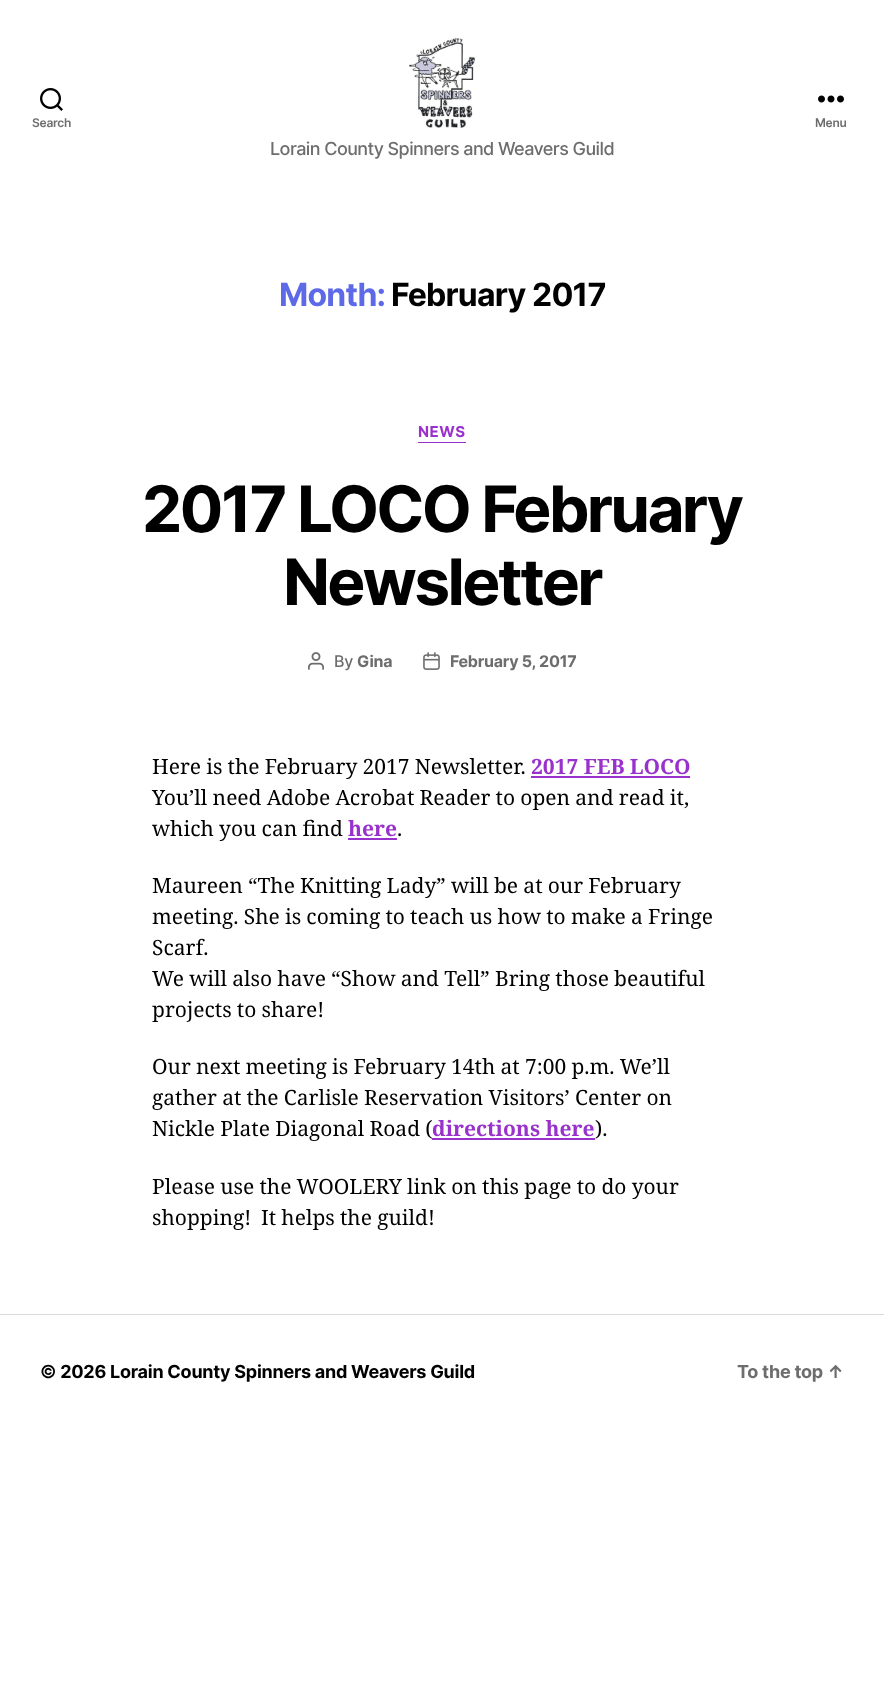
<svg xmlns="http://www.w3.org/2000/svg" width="884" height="1697">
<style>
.a{font:600 12px Inter;letter-spacing:-0.25px;fill:#6d6d6d}
.b{font:500 18px Inter;letter-spacing:-0.55px;fill:#6d6d6d}
.c{font:bold 32px Inter;letter-spacing:-0.8px;fill:#5e69e8}
.d{font:bold 32px Inter;letter-spacing:-0.8px;fill:#000}
.e{font:bold 15px Inter;letter-spacing:0.5px;fill:#9932cc}
.f{font:bold 64px Inter;letter-spacing:-2.7px;fill:#000}
.g{font:500 16px Inter;letter-spacing:-0.25px;fill:#6d6d6d}
.h{font:bold 16px Inter;letter-spacing:-0.25px;fill:#6d6d6d}
.i{font:21px Noto Serif;fill:#000}
.j{font:bold 21px Noto Serif;fill:#9932cc}
.k{font:bold 18px Inter;letter-spacing:-0.25px;fill:#000}
.l{font:bold 18px Inter;letter-spacing:-0.25px;fill:#6d6d6d}
</style>
<rect width="100%" height="100%" fill="#fff"/>
<image href="1.png" x="40" y="88" width="23" height="23"/>
<image href="2.png" x="818" y="95" width="26" height="8"/>
<image href="3.png" x="409" y="38" width="66" height="90"/>
<path fill="#9932cc" d="M418 442h48v1H418z"/>
<image href="4.png" x="308" y="652" width="16" height="18"/>
<image href="5.png" x="423" y="652" width="17" height="18"/>
<path fill="#9932cc" d="M531 776h159v2H531z"/>
<path fill="#9932cc" d="M348 838h49v2H348z"/>
<path fill="#9932cc" d="M432 1138h163v2H432z"/>
<path fill="#dbdbdb" d="M0 1314h884v1H0z"/>
<text class="a" x="32" y="127">Search</text>
<text class="a" x="815" y="127">Menu</text>
<text class="b" x="270" y="155">Lorain County Spinners and Weavers Guild</text>
<text class="c" x="279" y="306">Month:</text>
<text class="d" x="391" y="306">February 2017</text>
<text class="e" x="418" y="437">NEWS</text>
<text class="f" x="142" y="532">2017 LOCO February</text>
<text class="f" x="283" y="605">Newsletter</text>
<text class="g" x="334" y="667">By</text>
<text class="h" x="357" y="667">Gina</text>
<text class="h" x="450" y="667">February 5, 2017</text>
<text class="i" x="152" y="774" word-spacing="-0.25">Here is the February 2017 Newsletter.</text>
<text class="j" x="531" y="774" word-spacing="-0.25">2017 FEB LOCO</text>
<text class="i" x="152" y="805" word-spacing="-0.25">You’ll need Adobe Acrobat Reader to open and read it,</text>
<text class="i" x="152" y="836" word-spacing="-0.25">which you can find</text>
<text class="j" x="348" y="836">here</text>
<text class="i" x="397" y="836">.</text>
<text class="i" x="152" y="893" word-spacing="-0.25">Maureen “The Knitting Lady” will be at our February</text>
<text class="i" x="152" y="924" word-spacing="-0.25">meeting. She is coming to teach us how to make a Fringe</text>
<text class="i" x="152" y="955">Scarf.</text>
<text class="i" x="152" y="986" word-spacing="-0.25">We will also have “Show and Tell” Bring those beautiful</text>
<text class="i" x="152" y="1017" word-spacing="-0.25">projects to share!</text>
<text class="i" x="152" y="1074" word-spacing="-0.25">Our next meeting is February 14th at 7:00 p.m. We’ll</text>
<text class="i" x="152" y="1105" word-spacing="-0.25">gather at the Carlisle Reservation Visitors’ Center on</text>
<text class="i" x="152" y="1136" word-spacing="-0.25">Nickle Plate Diagonal Road (</text>
<text class="j" x="432" y="1136">directions here</text>
<text class="i" x="595" y="1136">).</text>
<text class="i" x="152" y="1194" word-spacing="-0.25">Please use the WOOLERY link on this page to do your</text>
<text class="i" x="152" y="1225">shopping!</text>
<text class="i" x="261" y="1225" word-spacing="-0.25">It helps the guild!</text>
<text class="k" x="40" y="1378">© 2026 Lorain County Spinners and Weavers Guild</text>
<text class="l" x="737" y="1378">To the top ↑</text>
</svg>
